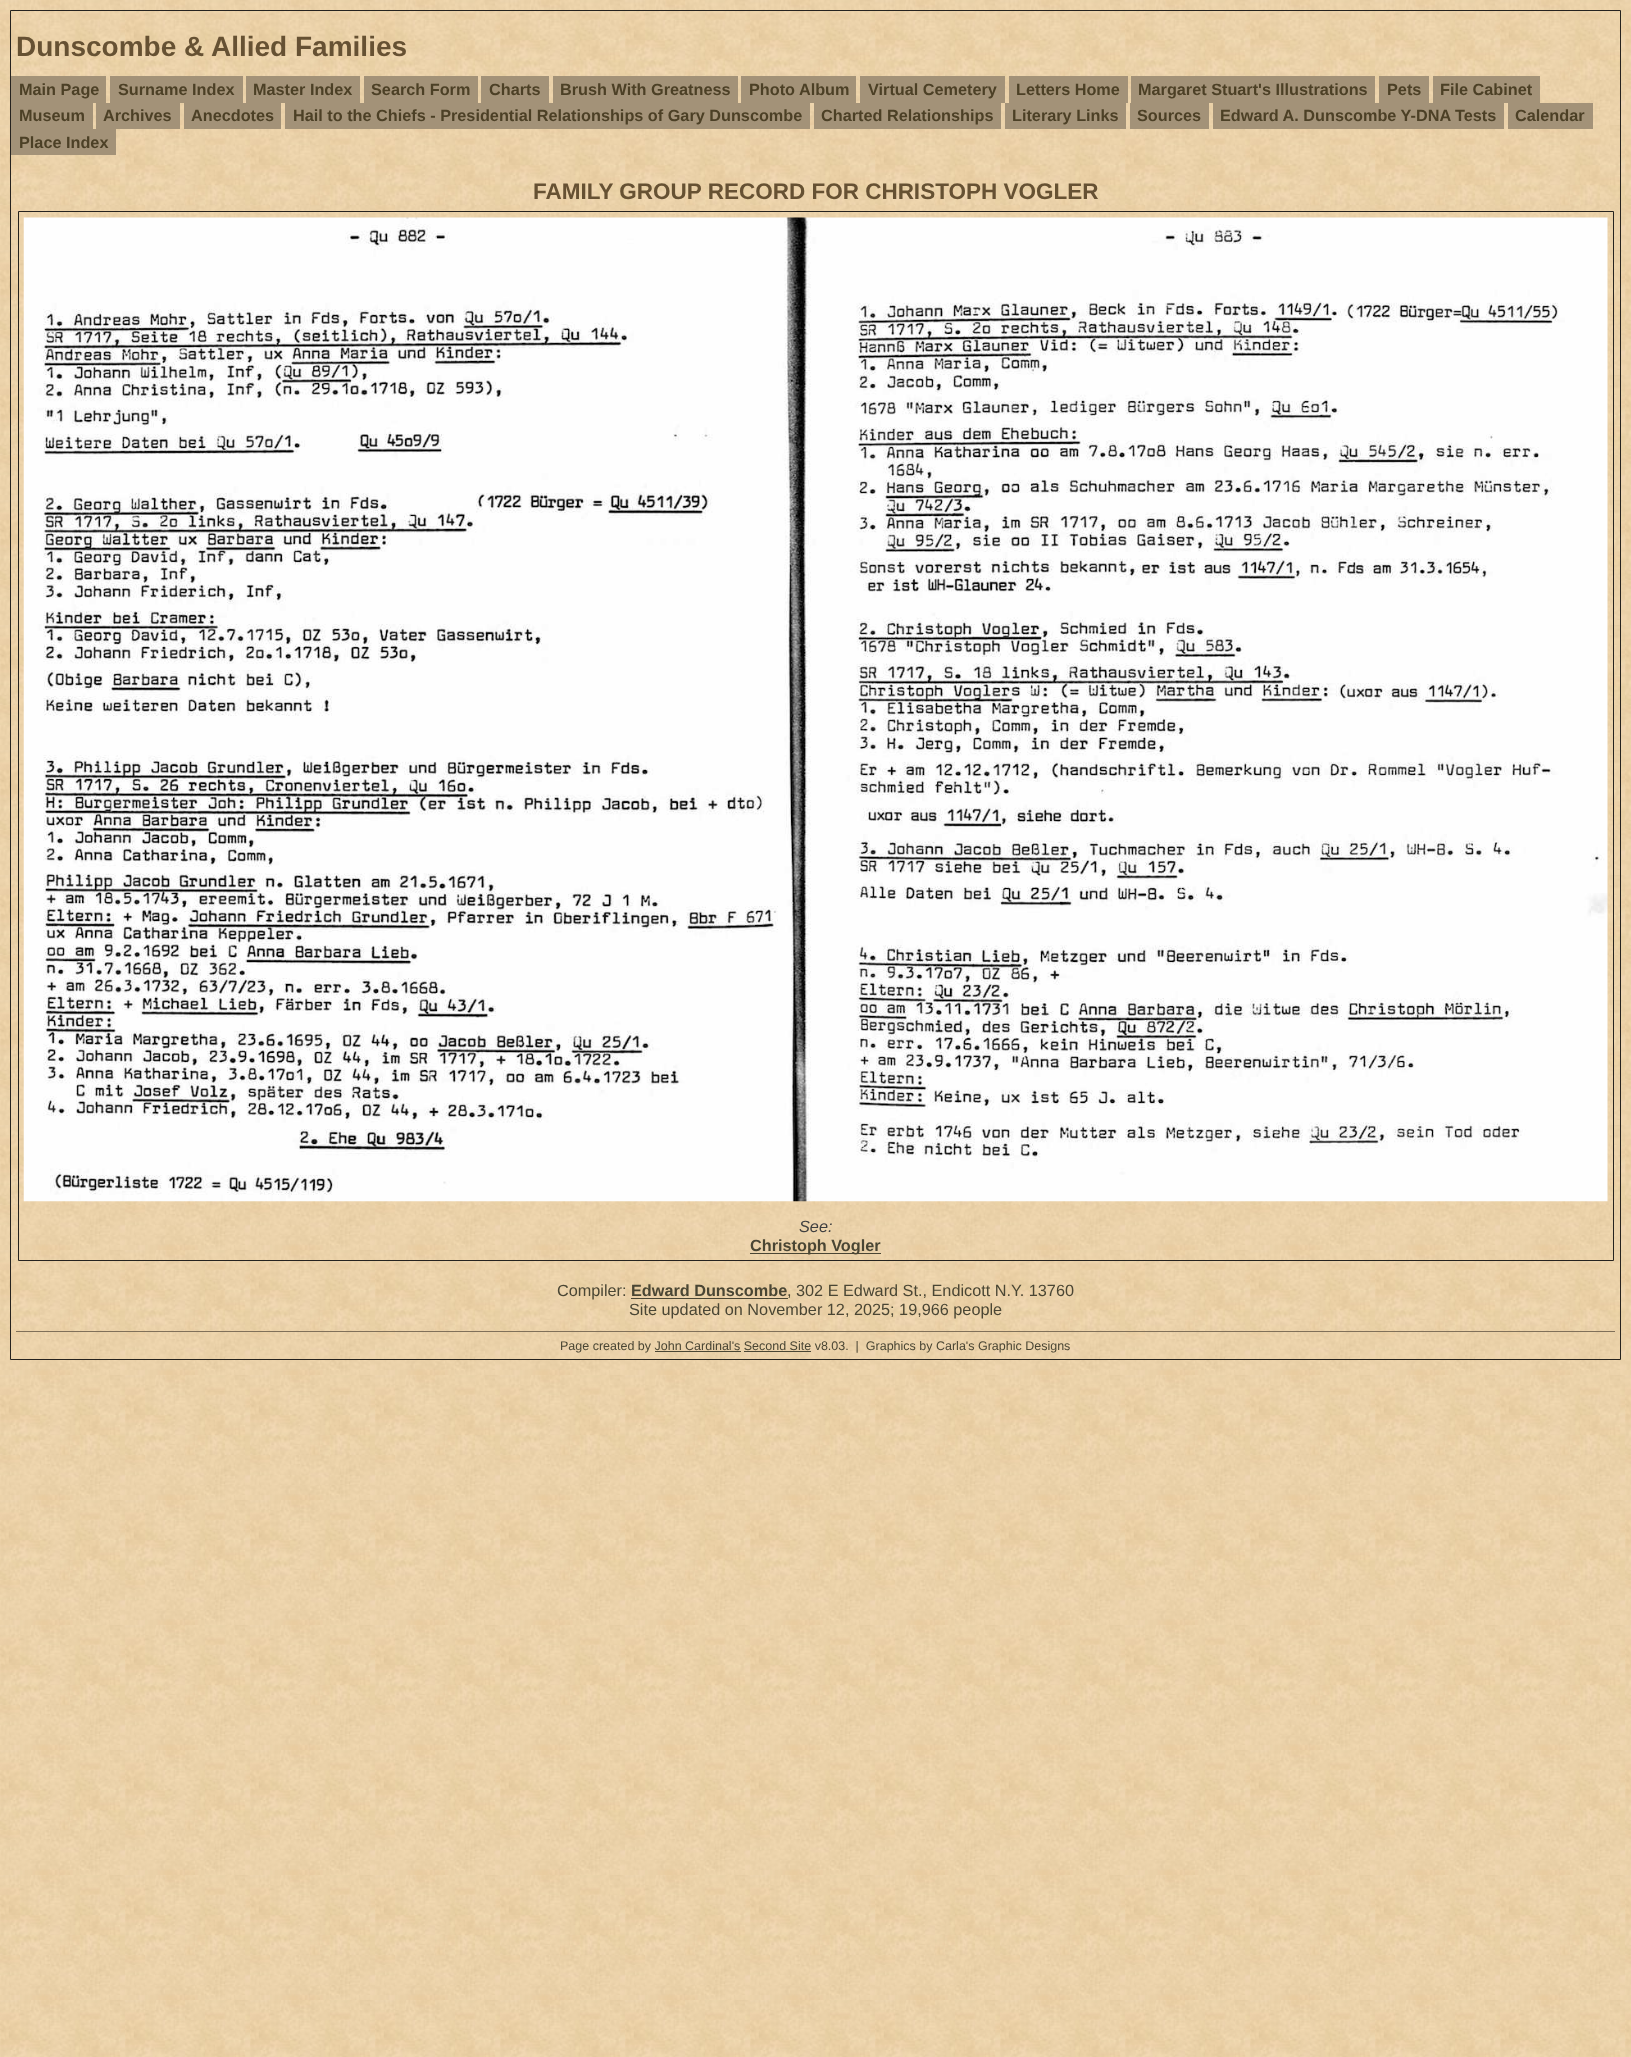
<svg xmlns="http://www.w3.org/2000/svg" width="1631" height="2057">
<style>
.a{font:bold 28px Liberation Sans;fill:#665133}
.b{font:bold 16.25px Liberation Sans;fill:#4c4026}
.c{font:bold 22.5px Liberation Sans;fill:#665133}
.d{font:italic 16.25px Liberation Sans;fill:#404040}
.e{font:bold 16.25px Liberation Sans;fill:#4a4634}
.f{font:16.25px Liberation Sans;fill:#4a4634}
.g{font:12.5px Liberation Sans;fill:#4a4634}
</style>
<rect width="100%" height="100%" fill="#fff"/>
<image href="1.png" x="0" y="0" width="1631" height="2057"/>
<path fill="none" stroke="#26231f" d="M10.5 10.5h1610v1349H10.5z"/>
<path fill="#a39278" d="M11 76h95v27H11z"/>
<path fill="#a39278" d="M110 76h133v27H110z"/>
<path fill="#a39278" d="M246 76h114v27H246z"/>
<path fill="#a39278" d="M364 76h114v27H364z"/>
<path fill="#a39278" d="M481 76h68v27H481z"/>
<path fill="#a39278" d="M553 76h185v27H553z"/>
<path fill="#a39278" d="M741 76h115v27H741z"/>
<path fill="#a39278" d="M860 76h145v27H860z"/>
<path fill="#a39278" d="M1009 76h119v27H1009z"/>
<path fill="#a39278" d="M1131 76h244v27H1131z"/>
<path fill="#a39278" d="M1379 76h50v27H1379z"/>
<path fill="#a39278" d="M1433 76h107v27H1433z"/>
<path fill="#a39278" d="M11 103h82v26H11z"/>
<path fill="#a39278" d="M96 103h84v26H96z"/>
<path fill="#a39278" d="M184 103h97v26H184z"/>
<path fill="#a39278" d="M285 103h525v26H285z"/>
<path fill="#a39278" d="M814 103h187v26H814z"/>
<path fill="#a39278" d="M1005 103h121v26H1005z"/>
<path fill="#a39278" d="M1130 103h79v26H1130z"/>
<path fill="#a39278" d="M1213 103h291v26H1213z"/>
<path fill="#a39278" d="M1508 103h85v26H1508z"/>
<path fill="#a39278" d="M11 129h105v26H11z"/>
<path fill="none" stroke="#26231f" d="M18.5 211.5h1595v1049H18.5z"/>
<image href="2.png" x="23" y="217" width="1585" height="985"/>
<path fill="#4a4634" d="M750 1253h131v1H750z"/>
<path fill="#4a4634" d="M631 1298h157v1H631z"/>
<path fill="#807059" d="M16 1331h1599v1H16z"/>
<path fill="#4a4634" d="M655 1351h86v1H655z"/>
<path fill="#4a4634" d="M744 1351h67v1H744z"/>
<text class="a" x="16" y="56">Dunscombe &amp; Allied Families</text>
<text class="b" x="19" y="95">Main Page</text>
<text class="b" x="118" y="95">Surname Index</text>
<text class="b" x="253" y="95">Master Index</text>
<text class="b" x="371" y="95">Search Form</text>
<text class="b" x="489" y="95">Charts</text>
<text class="b" x="560" y="95">Brush With Greatness</text>
<text class="b" x="749" y="95">Photo Album</text>
<text class="b" x="868" y="95">Virtual Cemetery</text>
<text class="b" x="1016" y="95">Letters Home</text>
<text class="b" x="1138" y="95">Margaret Stuart's Illustrations</text>
<text class="b" x="1387" y="95">Pets</text>
<text class="b" x="1440" y="95">File Cabinet</text>
<text class="b" x="19" y="121">Museum</text>
<text class="b" x="103" y="121">Archives</text>
<text class="b" x="191" y="121">Anecdotes</text>
<text class="b" x="293" y="121">Hail to the Chiefs - Presidential Relationships of Gary Dunscombe</text>
<text class="b" x="821" y="121">Charted Relationships</text>
<text class="b" x="1012" y="121">Literary Links</text>
<text class="b" x="1137" y="121">Sources</text>
<text class="b" x="1220" y="121">Edward A. Dunscombe Y-DNA Tests</text>
<text class="b" x="1515" y="121">Calendar</text>
<text class="b" x="19" y="148">Place Index</text>
<text class="c" x="533" y="199">FAMILY GROUP RECORD FOR CHRISTOPH VOGLER</text>
<text class="d" x="799" y="1232">See:</text>
<text class="e" x="750" y="1251">Christoph Vogler</text>
<text class="f" x="557" y="1296">Compiler:</text>
<text class="e" x="631" y="1296">Edward Dunscombe</text>
<text class="f" x="787" y="1296">, 302 E Edward St., Endicott N.Y. 13760</text>
<text class="f" x="629" y="1315">Site updated on November 12, 2025; 19,966 people</text>
<text class="g" xml:space="preserve" x="560" y="1350">Page created by John Cardinal's Second Site v8.03.  |  Graphics by Carla's Graphic Designs</text>
</svg>
